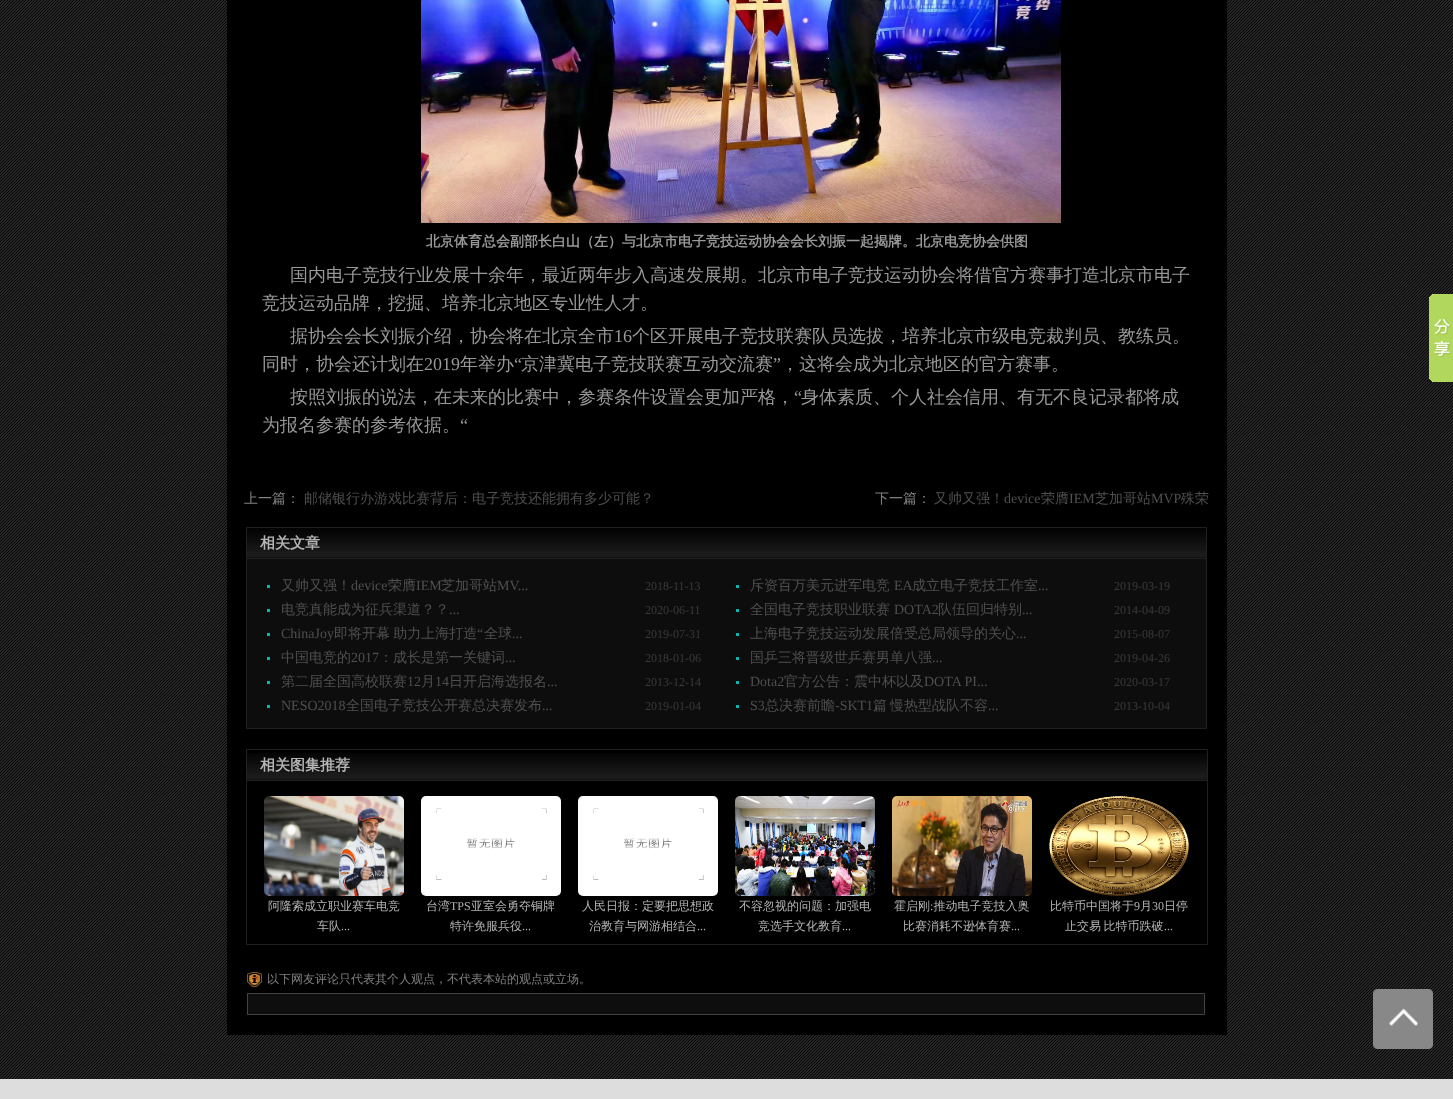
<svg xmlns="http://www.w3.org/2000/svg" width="1453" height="1099">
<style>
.a{font:bold 14px WenQuanYi Zen Hei;fill:#989898}
.b{font:500 18px WenQuanYi Zen Hei;fill:#989898}
.c{font:18px Liberation Serif;fill:#989898}
.d{font:500 14px WenQuanYi Zen Hei;fill:#808080}
.e{font:500 14px WenQuanYi Zen Hei;fill:#4f4f4f}
.f{font:14px Liberation Serif;fill:#4f4f4f}
.g{font:bold 15px WenQuanYi Zen Hei;fill:#b5b5b5}
.h{font:12px Liberation Serif;fill:#3a3a3a}
.i{font:500 12px WenQuanYi Zen Hei;fill:#b5b5b5}
.j{font:12px Liberation Serif;fill:#b5b5b5}
.k{font:500 12px WenQuanYi Zen Hei;fill:#808080}
</style>
<rect width="100%" height="100%" fill="#fff"/>
<image href="1.png" x="0" y="0" width="1453" height="1079"/>
<path fill="#000" d="M227 0h1000v1035H227z"/>
<image href="2.png" x="421" y="0" width="640" height="223"/>
<path fill="#0d0d0d" d="M247 559h959v169H247z"/>
<path fill="none" stroke="#212121" d="M246.5 527.5h960v201H246.5z"/>
<image href="3.png" x="247" y="528" width="959" height="31"/>
<path fill="#0bb5b4" d="M267 585h3v3H267z"/>
<path fill="#0bb5b4" d="M736 585h3v3H736z"/>
<path fill="#0bb5b4" d="M267 609h3v3H267z"/>
<path fill="#0bb5b4" d="M736 609h3v3H736z"/>
<path fill="#0bb5b4" d="M267 633h3v3H267z"/>
<path fill="#0bb5b4" d="M736 633h3v3H736z"/>
<path fill="#0bb5b4" d="M267 657h3v3H267z"/>
<path fill="#0bb5b4" d="M736 657h3v3H736z"/>
<path fill="#0bb5b4" d="M267 681h3v3H267z"/>
<path fill="#0bb5b4" d="M736 681h3v3H736z"/>
<path fill="#0bb5b4" d="M267 705h3v3H267z"/>
<path fill="#0bb5b4" d="M736 705h3v3H736z"/>
<path fill="none" stroke="#212121" d="M246.5 749.5h961v195H246.5z"/>
<image href="4.png" x="247" y="753" width="960" height="28"/>
<image href="5.png" x="264" y="796" width="140" height="100"/>
<image href="6.png" x="421" y="796" width="140" height="100"/>
<image href="7.png" x="578" y="796" width="140" height="100"/>
<image href="8.png" x="735" y="796" width="140" height="100"/>
<image href="9.png" x="892" y="796" width="140" height="100"/>
<image href="10.png" x="1049" y="796" width="140" height="100"/>
<image href="11.png" x="247" y="972" width="15" height="15"/>
<path fill="#0e0e0e" stroke="#444" d="M247.5 993.5h957v21H247.5z"/>
<image href="12.png" x="1429" y="294" width="24" height="88"/>
<image href="13.png" x="1373" y="989" width="60" height="60"/>
<path fill="#ddd" d="M0 1079h1453v20H0z"/>
<text class="a" x="426" y="246">北京体育总会副部长白山（左）与北京市电子竞技运动协会会长刘振一起揭牌。北京电竞协会供图</text>
<text class="b" x="290" y="281">国内电子竞技行业发展十余年，最近两年步入高速发展期。北京市电子竞技运动协会将借官方赛事打造北京市电子</text>
<text class="b" x="262" y="309">竞技运动品牌，挖掘、培养北京地区专业性人才。</text>
<text class="b" x="290" y="342">据协会会长刘振介绍，协会将在北京全市</text>
<text class="c" x="614" y="342">16</text>
<text class="b" x="632" y="342">个区开展电子竞技联赛队员选拔，培养北京市级电竞裁判员、教练员。</text>
<text class="b" x="262" y="370">同时，协会还计划在</text>
<text class="c" x="424" y="370">2019</text>
<text class="b" x="460" y="370">年举办</text>
<text class="c" x="514" y="370">“</text>
<text class="b" x="521" y="370">京津冀电子竞技联赛互动交流赛</text>
<text class="c" x="773" y="370">”</text>
<text class="b" x="781" y="370">，这将会成为北京地区的官方赛事。</text>
<text class="b" x="290" y="403">按照刘振的说法，在未来的比赛中，参赛条件设置会更加严格，</text>
<text class="c" x="794" y="403">“</text>
<text class="b" x="801" y="403">身体素质、个人社会信用、有无不良记录都将成</text>
<text class="b" x="262" y="431">为报名参赛的参考依据。</text>
<text class="c" x="460" y="431">“</text>
<text class="d" x="244" y="503">上一篇：</text>
<text class="e" x="304" y="503">邮储银行办游戏比赛背后：电子竞技还能拥有多少可能？</text>
<text class="d" x="875" y="503">下一篇：</text>
<text class="e" x="934" y="503">又帅又强！</text>
<text class="f" x="1004" y="503">device</text>
<text class="e" x="1041" y="503">荣膺</text>
<text class="f" x="1069" y="503">IEM</text>
<text class="e" x="1095" y="503">芝加哥站</text>
<text class="f" x="1151" y="503">MVP</text>
<text class="e" x="1181" y="503">殊荣</text>
<text class="g" x="260" y="548">相关文章</text>
<text class="e" x="281" y="590">又帅又强！</text>
<text class="f" x="351" y="590">device</text>
<text class="e" x="388" y="590">荣膺</text>
<text class="f" x="416" y="590">IEM</text>
<text class="e" x="441" y="590">芝加哥站</text>
<text class="f" x="497" y="590">MV...</text>
<text class="h" x="645" y="590">2018-11-13</text>
<text class="e" x="750" y="590">斥资百万美元进军电竞</text>
<text class="f" x="894" y="590">EA</text>
<text class="e" x="912" y="590">成立电子竞技工作室</text>
<text class="f" x="1038" y="590">...</text>
<text class="h" x="1114" y="590">2019-03-19</text>
<text class="e" x="281" y="614">电竞真能成为征兵渠道？？</text>
<text class="f" x="449" y="614">...</text>
<text class="h" x="645" y="614">2020-06-11</text>
<text class="e" x="750" y="614">全国电子竞技职业联赛</text>
<text class="f" x="894" y="614">DOTA2</text>
<text class="e" x="938" y="614">队伍回归特别</text>
<text class="f" x="1022" y="614">...</text>
<text class="h" x="1114" y="614">2014-04-09</text>
<text class="f" x="281" y="638">ChinaJoy</text>
<text class="e" x="334" y="638" word-spacing="-1">即将开幕 助力上海打造</text>
<text class="f" x="477" y="638">“</text>
<text class="e" x="484" y="638">全球</text>
<text class="f" x="512" y="638">...</text>
<text class="h" x="645" y="638">2019-07-31</text>
<text class="e" x="750" y="638">上海电子竞技运动发展倍受总局领导的关心</text>
<text class="f" x="1016" y="638">...</text>
<text class="h" x="1114" y="638">2015-08-07</text>
<text class="e" x="281" y="662">中国电竞的</text>
<text class="f" x="351" y="662">2017</text>
<text class="e" x="379" y="662">：成长是第一关键词</text>
<text class="f" x="505" y="662">...</text>
<text class="h" x="645" y="662">2018-01-06</text>
<text class="e" x="750" y="662">国乒三将晋级世乒赛男单八强</text>
<text class="f" x="932" y="662">...</text>
<text class="h" x="1114" y="662">2019-04-26</text>
<text class="e" x="281" y="686">第二届全国高校联赛</text>
<text class="f" x="407" y="686">12</text>
<text class="e" x="421" y="686">月</text>
<text class="f" x="435" y="686">14</text>
<text class="e" x="449" y="686">日开启海选报名</text>
<text class="f" x="547" y="686">...</text>
<text class="h" x="645" y="686">2013-12-14</text>
<text class="f" x="750" y="686">Dota2</text>
<text class="e" x="784" y="686">官方公告：震中杯以及</text>
<text class="f" x="924" y="686">DOTA PI...</text>
<text class="h" x="1114" y="686">2020-03-17</text>
<text class="f" x="281" y="710">NESO2018</text>
<text class="e" x="346" y="710">全国电子竞技公开赛总决赛发布</text>
<text class="f" x="542" y="710">...</text>
<text class="h" x="645" y="710">2019-01-04</text>
<text class="f" x="750" y="710">S3</text>
<text class="e" x="765" y="710">总决赛前瞻</text>
<text class="f" x="835" y="710">-SKT1</text>
<text class="e" x="873" y="710">篇</text>
<text class="e" x="890" y="710">慢热型战队不容</text>
<text class="f" x="988" y="710">...</text>
<text class="h" x="1114" y="710">2013-10-04</text>
<text class="g" x="260" y="770">相关图集推荐</text>
<text class="i" x="268" y="910">阿隆索成立职业赛车电竞</text>
<text class="i" x="317" y="930">车队</text>
<text class="j" x="341" y="930">...</text>
<text class="i" x="426" y="910">台湾</text>
<text class="j" x="450" y="910">TPS</text>
<text class="i" x="471" y="910">亚室会勇夺铜牌</text>
<text class="i" x="450" y="930">特许免服兵役</text>
<text class="j" x="522" y="930">...</text>
<text class="i" x="582" y="910">人民日报：定要把思想政</text>
<text class="i" x="589" y="930">治教育与网游相结合</text>
<text class="j" x="697" y="930">...</text>
<text class="i" x="739" y="910">不容忽视的问题：加强电</text>
<text class="i" x="758" y="930">竞选手文化教育</text>
<text class="j" x="842" y="930">...</text>
<text class="i" x="894" y="910">霍启刚 推动电子竞技入奥</text>
<text class="j" x="930" y="910">:</text>
<text class="i" x="903" y="930">比赛消耗不逊体育赛</text>
<text class="j" x="1011" y="930">...</text>
<text class="i" x="1050" y="910">比特币中国将于</text>
<text class="j" x="1134" y="910">9</text>
<text class="i" x="1140" y="910">月</text>
<text class="j" x="1152" y="910">30</text>
<text class="i" x="1164" y="910">日停</text>
<text class="i" x="1065" y="930" word-spacing="-1">止交易 比特币跌破</text>
<text class="j" x="1164" y="930">...</text>
<text class="k" x="267" y="983">以下网友评论只代表其个人观点，不代表本站的观点或立场。</text>
</svg>
